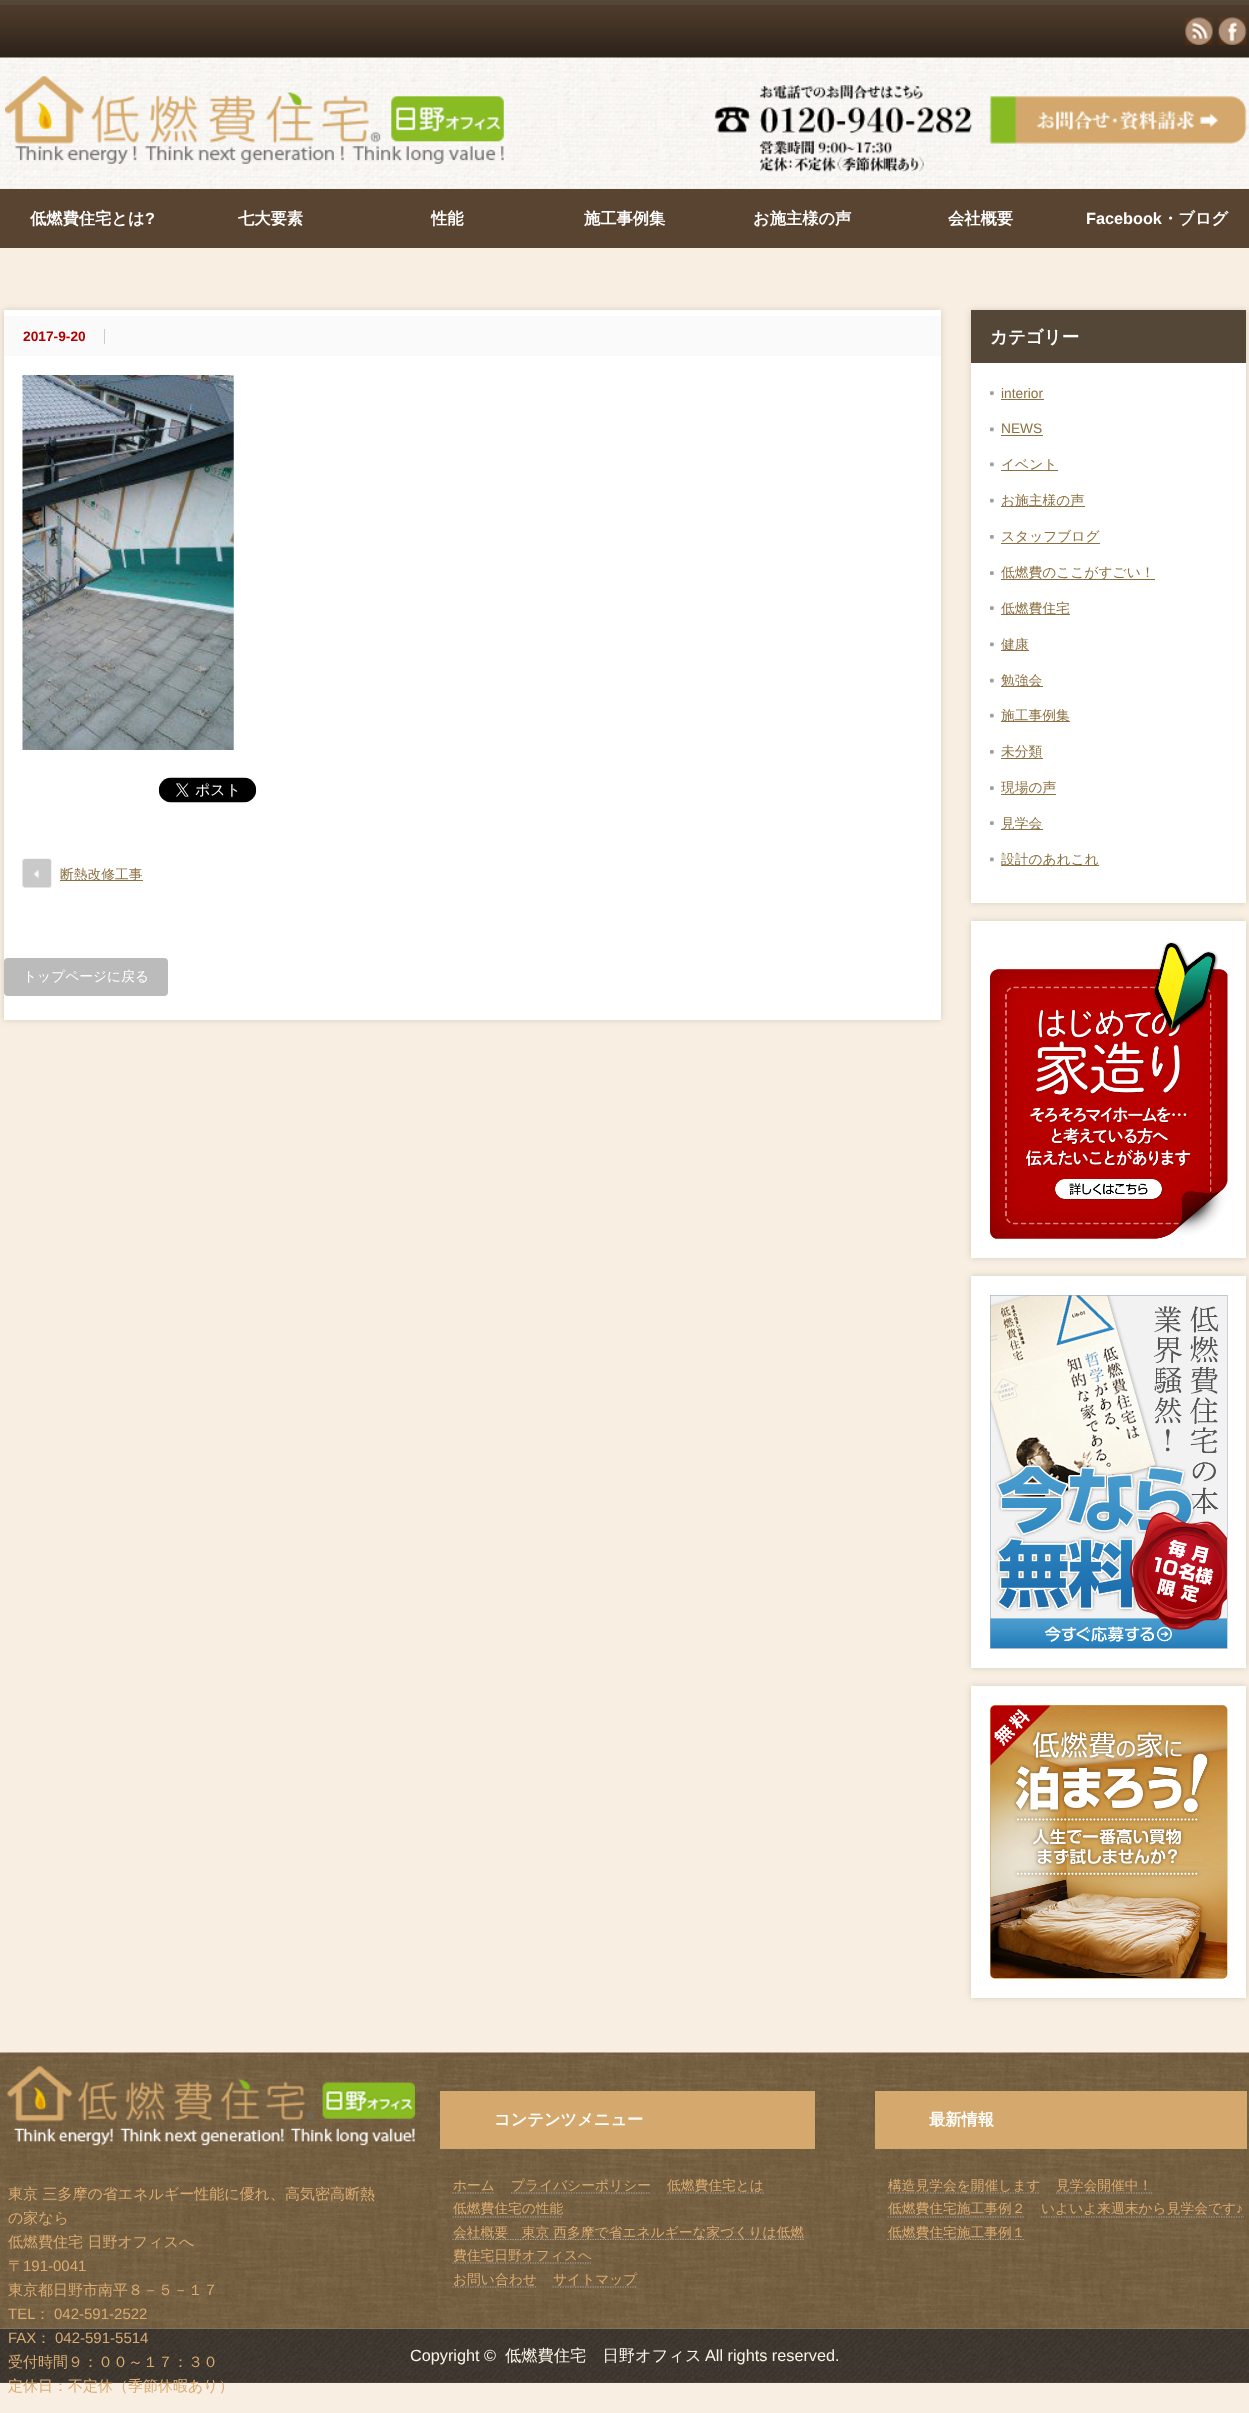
<svg xmlns="http://www.w3.org/2000/svg" width="1249" height="2413">
<style>
.a{font:bold 16.25px WenQuanYi Zen Hei;fill:#fff}
.b{font:bold 16.25px Liberation Sans;fill:#fff}
.c{font:bold 13.75px Liberation Sans;fill:#b20000}
.d{font:500 13.75px WenQuanYi Zen Hei;fill:#8c7042}
.e{font:500 13.75px WenQuanYi Zen Hei;fill:#fff}
.f{font:bold 17.5px WenQuanYi Zen Hei;fill:#fff}
.g{font:13.75px Liberation Sans;fill:#8c7042}
.h{font:500 15px WenQuanYi Zen Hei;fill:#daac71}
.i{font:15px Liberation Sans;fill:#daac71}
.j{font:500 13.75px WenQuanYi Zen Hei;fill:#daac71}
.k{font:13.75px Liberation Sans;fill:#daac71}
.l{font:16.25px Liberation Sans;fill:#f8f4e6}
.m{font:500 16.25px WenQuanYi Zen Hei;fill:#f8f4e6}
</style>
<rect width="100%" height="100%" fill="#f8efe2"/>
<image href="1.png" x="0" y="5" width="1249" height="184"/>
<path fill="#554738" d="M0 0h1249v5H0z"/>
<image href="2.png" x="1185" y="17" width="28" height="28"/>
<image href="3.png" x="1218" y="17" width="29" height="28"/>
<image href="4.png" x="5" y="76" width="499" height="88"/>
<image href="5.png" x="714" y="85" width="533" height="87"/>
<path fill="#594431" d="M0 189h1249v59H0z"/>
<path fill="#00000026" filter="blur(3px)" d="M4 310h937v710H4z"/>
<path fill="#fff" d="M4 310h937v710H4z"/>
<path fill="#fafafa" d="M4 316h937v40H4z"/>
<path fill="#ccc" d="M104 329h1v15H104z"/>
<image href="6.png" x="22" y="375" width="212" height="375"/>
<image href="7.png" x="158" y="777" width="99" height="26"/>
<image href="8.png" x="22" y="858" width="30" height="30"/>
<path fill="#8c7042" d="M60 880h83v1H60z"/>
<rect fill="#bbb" x="4" y="958" width="164" height="38" rx="4"/>
<path fill="#00000026" filter="blur(3px)" d="M971 310h275v593H971z"/>
<path fill="#fff" d="M971 363h275v540H971z"/>
<path fill="#554738" d="M971 310h275v53H971z"/>
<image href="9.png" x="990" y="391" width="4" height="4"/>
<path fill="#8c7042" d="M1001 399h43v1H1001z"/>
<image href="10.png" x="990" y="427" width="4" height="5"/>
<path fill="#8c7042" d="M1001 435h42v1H1001z"/>
<image href="10.png" x="990" y="462" width="4" height="5"/>
<path fill="#8c7042" d="M1001 470h57v1H1001z"/>
<image href="11.png" x="990" y="498" width="4" height="5"/>
<path fill="#8c7042" d="M1001 506h84v1H1001z"/>
<image href="12.png" x="990" y="535" width="4" height="4"/>
<path fill="#8c7042" d="M1001 543h99v1H1001z"/>
<image href="9.png" x="990" y="571" width="4" height="4"/>
<path fill="#8c7042" d="M1001 579h154v1H1001z"/>
<image href="9.png" x="990" y="606" width="4" height="4"/>
<path fill="#8c7042" d="M1001 614h69v1H1001z"/>
<image href="10.png" x="990" y="642" width="4" height="5"/>
<path fill="#8c7042" d="M1001 650h28v1H1001z"/>
<image href="11.png" x="990" y="678" width="4" height="5"/>
<path fill="#8c7042" d="M1001 686h42v1H1001z"/>
<image href="11.png" x="990" y="713" width="4" height="5"/>
<path fill="#8c7042" d="M1001 721h69v1H1001z"/>
<image href="12.png" x="990" y="750" width="4" height="4"/>
<path fill="#8c7042" d="M1001 758h42v1H1001z"/>
<image href="9.png" x="990" y="786" width="4" height="4"/>
<path fill="#8c7042" d="M1001 794h55v1H1001z"/>
<image href="9.png" x="990" y="821" width="4" height="4"/>
<path fill="#8c7042" d="M1001 829h42v1H1001z"/>
<image href="10.png" x="990" y="857" width="4" height="5"/>
<path fill="#8c7042" d="M1001 865h98v1H1001z"/>
<path fill="#00000026" filter="blur(3px)" d="M971 921h275v337H971z"/>
<path fill="#fff" d="M971 921h275v337H971z"/>
<image href="13.png" x="990" y="941" width="238" height="298"/>
<path fill="#00000026" filter="blur(3px)" d="M971 1276h275v392H971z"/>
<path fill="#fff" d="M971 1276h275v392H971z"/>
<image href="14.png" x="990" y="1295" width="238" height="354"/>
<path fill="#00000026" filter="blur(3px)" d="M971 1686h275v312H971z"/>
<path fill="#fff" d="M971 1686h275v312H971z"/>
<image href="15.png" x="990" y="1705" width="238" height="274"/>
<image href="16.png" x="0" y="2052" width="1249" height="277"/>
<image href="17.png" x="7" y="2066" width="408" height="80"/>
<path fill="#d5a96d" d="M440 2091h375v58H440z"/>
<path fill="none" stroke="#aaa" stroke-width="1.2" stroke-dasharray="1.25 1.25" d="M452.5 2193h42.5"/>
<path fill="none" stroke="#aaa" stroke-width="1.2" stroke-dasharray="1.25 1.25" d="M511 2193h140"/>
<path fill="none" stroke="#aaa" stroke-width="1.2" stroke-dasharray="1.25 1.25" d="M667.5 2193h96.5"/>
<path fill="none" stroke="#aaa" stroke-width="1.2" stroke-dasharray="1.25 1.25" d="M452.5 2217h110"/>
<path fill="none" stroke="#aaa" stroke-width="1.2" stroke-dasharray="1.25 1.25" d="M452.5 2239.5h351.5"/>
<path fill="none" stroke="#aaa" stroke-width="1.2" stroke-dasharray="1.25 1.25" d="M452.5 2263h138.5"/>
<path fill="none" stroke="#aaa" stroke-width="1.2" stroke-dasharray="1.25 1.25" d="M452.5 2287h83.5"/>
<path fill="none" stroke="#aaa" stroke-width="1.2" stroke-dasharray="1.25 1.25" d="M552.5 2287h85"/>
<path fill="#d5a96d" d="M875 2091h372v58H875z"/>
<path fill="none" stroke="#aaa" stroke-width="1.2" stroke-dasharray="1.25 1.25" d="M887.5 2193h152.5"/>
<path fill="none" stroke="#aaa" stroke-width="1.2" stroke-dasharray="1.25 1.25" d="M1056 2193h96.5"/>
<path fill="none" stroke="#aaa" stroke-width="1.2" stroke-dasharray="1.25 1.25" d="M887.5 2217h137.5"/>
<path fill="none" stroke="#aaa" stroke-width="1.2" stroke-dasharray="1.25 1.25" d="M1041 2217h203"/>
<path fill="none" stroke="#aaa" stroke-width="1.2" stroke-dasharray="1.25 1.25" d="M887.5 2239.5h137.5"/>
<path fill="#554738" d="M0 2382h1249v1H0z"/>
<image href="18.png" x="0" y="2328" width="1249" height="55"/>
<text class="a" x="30" y="224">低燃費住宅とは</text>
<text class="b" x="145" y="224">?</text>
<text class="a" x="238" y="224">七大要素</text>
<text class="a" x="431" y="224">性能</text>
<text class="a" x="584" y="224">施工事例集</text>
<text class="a" x="753" y="224">お施主様の声</text>
<text class="a" x="948" y="224">会社概要</text>
<text class="b" x="1086" y="224">Facebook</text>
<text class="a" x="1162" y="224">・ブログ</text>
<text class="c" x="23" y="341">2017-9-20</text>
<text class="d" x="60" y="879">断熱改修工事</text>
<text class="e" x="23" y="981">トップページに戻る</text>
<text class="f" x="990" y="343">カテゴリー</text>
<text class="g" x="1001" y="398">interior</text>
<text class="g" x="1001" y="433">NEWS</text>
<text class="d" x="1001" y="469">イベント</text>
<text class="d" x="1001" y="505">お施主様の声</text>
<text class="d" x="1001" y="541">スタッフブログ</text>
<text class="d" x="1001" y="577">低燃費のここがすごい！</text>
<text class="d" x="1001" y="613">低燃費住宅</text>
<text class="d" x="1001" y="649">健康</text>
<text class="d" x="1001" y="685">勉強会</text>
<text class="d" x="1001" y="720">施工事例集</text>
<text class="d" x="1001" y="756">未分類</text>
<text class="d" x="1001" y="792">現場の声</text>
<text class="d" x="1001" y="828">見学会</text>
<text class="d" x="1001" y="864">設計のあれこれ</text>
<text class="h" x="8" y="2199">東京 三多摩の省エネルギー性能に優れ、高気密高断熱</text>
<text class="h" x="8" y="2223">の家なら</text>
<text class="h" x="8" y="2247">低燃費住宅 日野オフィスへ</text>
<text class="h" x="8" y="2271">〒</text>
<text class="i" x="23" y="2271">191-0041</text>
<text class="h" x="8" y="2295">東京都日野市南平８－５－１７</text>
<text class="i" x="8" y="2319">TEL</text>
<text class="h" x="35" y="2319">：</text>
<text class="i" x="54" y="2319">042-591-2522</text>
<text class="i" x="8" y="2343">FAX</text>
<text class="h" x="36" y="2343">：</text>
<text class="i" x="55" y="2343">042-591-5514</text>
<text class="h" x="8" y="2367">受付時間９：００～１７：３０</text>
<text class="h" x="8" y="2391">定休日：不定休（季節休暇あり）</text>
<text class="a" x="494" y="2125">コンテンツメニュー</text>
<text class="j" x="453" y="2190">ホーム</text>
<text class="j" x="511" y="2190">プライバシーポリシー</text>
<text class="j" x="667" y="2190">低燃費住宅とは</text>
<text class="j" x="453" y="2213">低燃費住宅の性能</text>
<text class="j" x="453" y="2237">会社概要　東京 西多摩で省エネルギーな家づくりは低燃</text>
<text class="j" x="453" y="2260">費住宅日野オフィスへ</text>
<text class="j" x="453" y="2284">お問い合わせ</text>
<text class="j" x="553" y="2284">サイトマップ</text>
<text class="a" x="929" y="2125">最新情報</text>
<text class="j" x="888" y="2190">構造見学会を開催します</text>
<text class="j" x="1056" y="2190">見学会開催中！</text>
<text class="j" x="888" y="2213">低燃費住宅施工事例２</text>
<text class="j" x="1041" y="2213">いよいよ来週末から見学会です</text>
<text class="k" x="1236" y="2213">♪</text>
<text class="j" x="888" y="2237">低燃費住宅施工事例１</text>
<text class="l" x="410" y="2361">Copyright ©</text>
<text class="m" x="505" y="2361">低燃費住宅　日野オフィス</text>
<text class="l" x="705" y="2361">All rights reserved.</text>
</svg>
